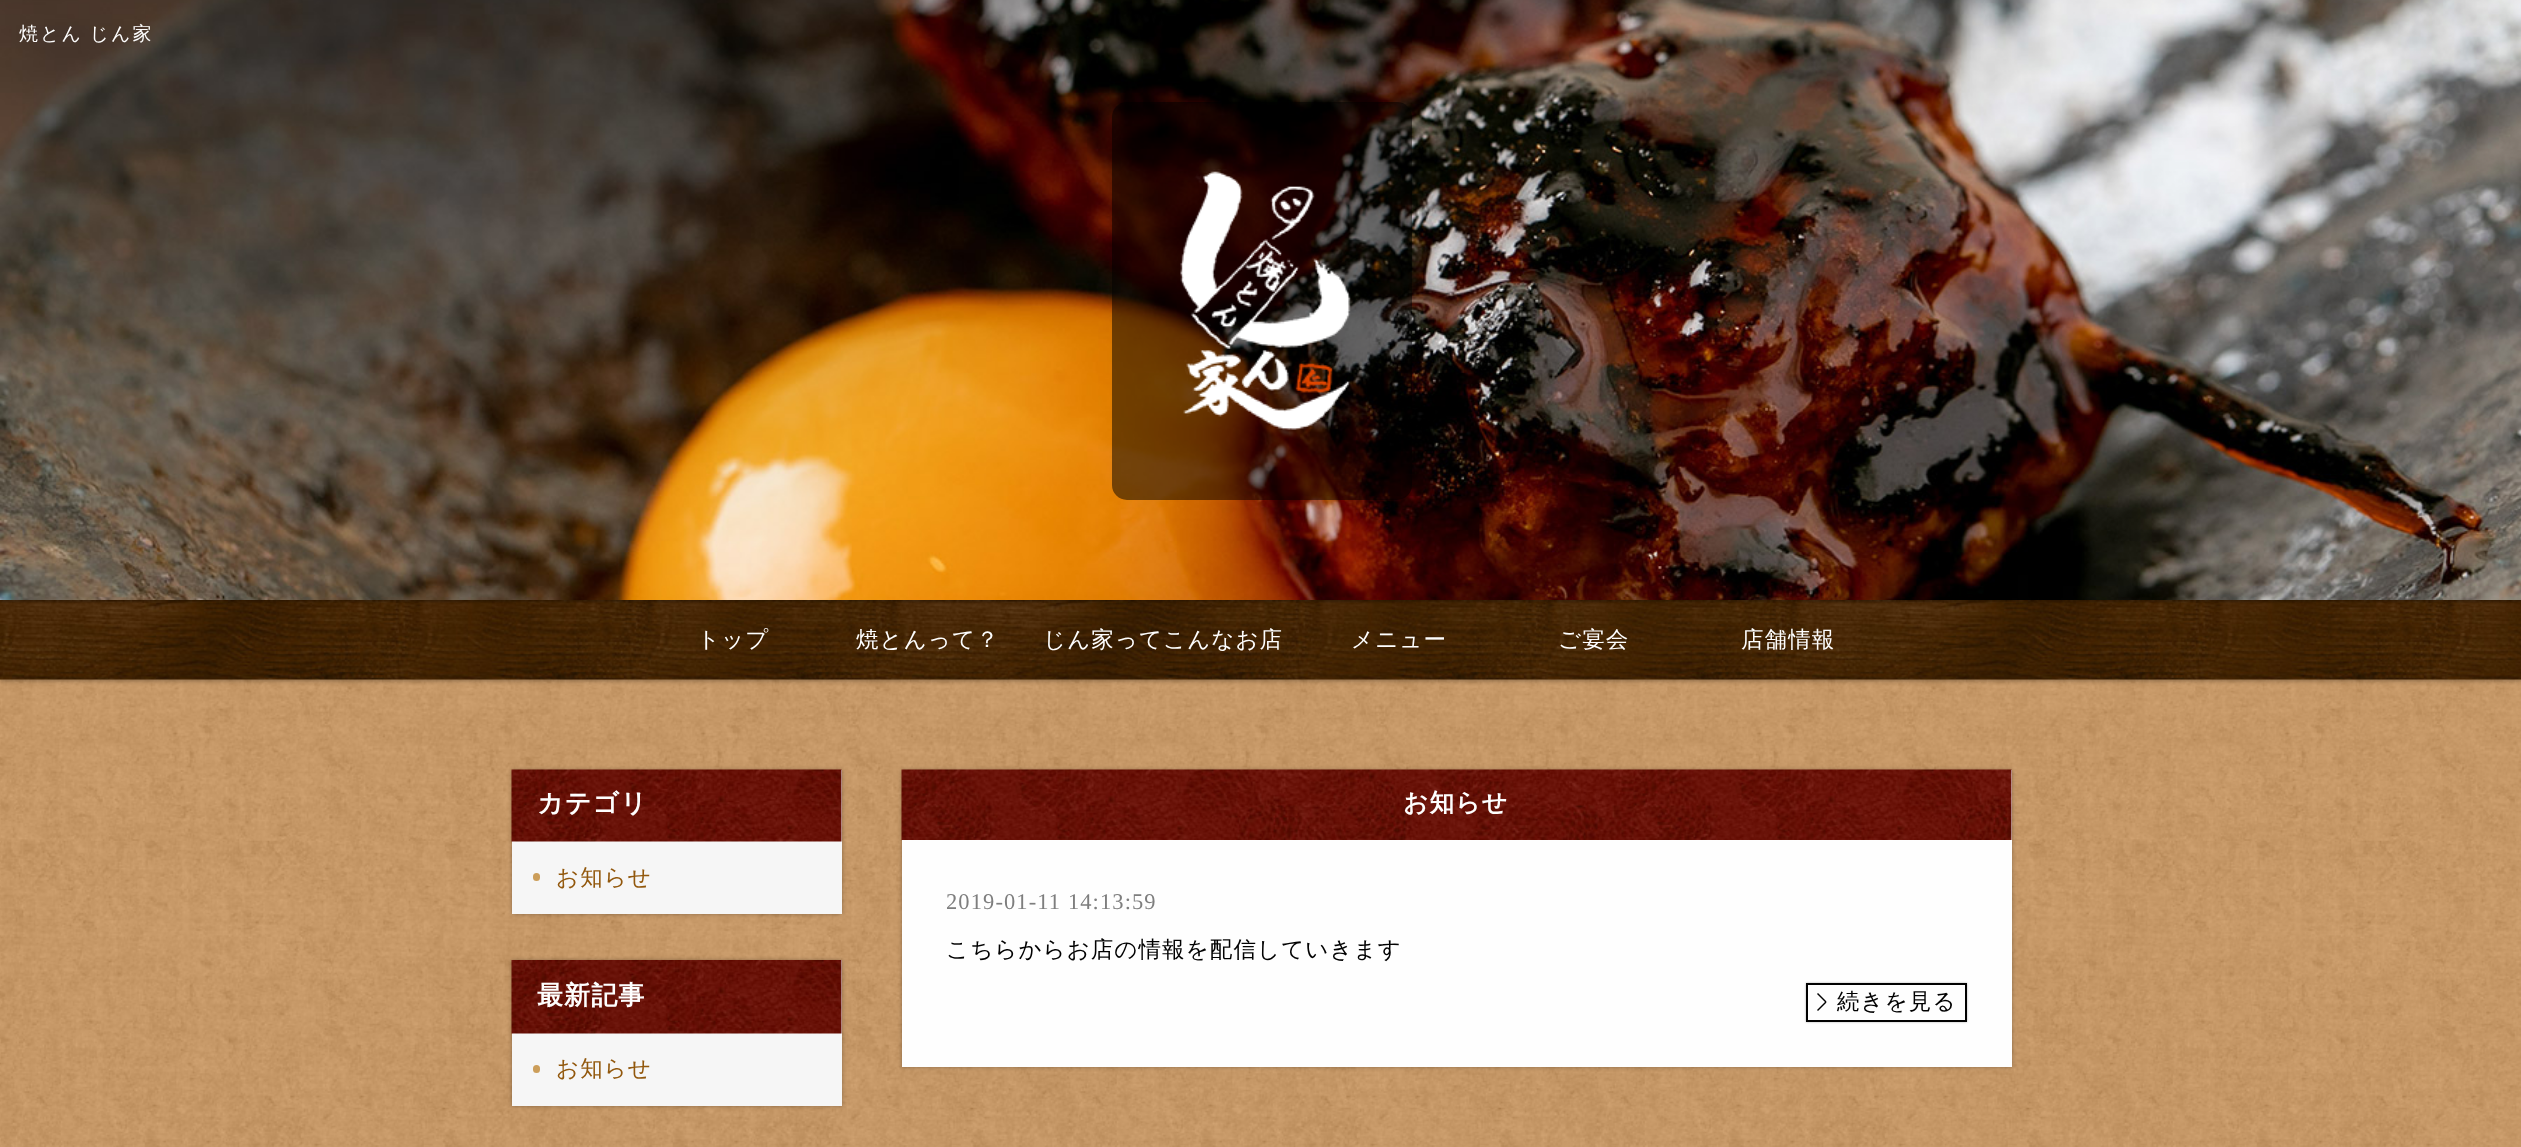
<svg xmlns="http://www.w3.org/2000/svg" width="2521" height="1147">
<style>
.a{font:500 19px WenQuanYi Zen Hei;letter-spacing:2px;fill:#fefefe}
.b{font:500 22.5px WenQuanYi Zen Hei;letter-spacing:1.1px;fill:#fefefe}
.c{font:bold 26px WenQuanYi Zen Hei;letter-spacing:1.1px;fill:#fefefe}
.d{font:500 22.5px WenQuanYi Zen Hei;letter-spacing:1.1px;fill:#92580d}
.e{font:bold 24.75px WenQuanYi Zen Hei;letter-spacing:1.1px;fill:#fefefe}
.f{font:22.5px Liberation Serif;letter-spacing:1.1px;fill:#7e7e7e}
.g{font:500 22.5px WenQuanYi Zen Hei;letter-spacing:1.1px;fill:#010101}
</style>
<defs>
<clipPath id="clip1"><path d="M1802 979h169v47h-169zm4 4h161v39h-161z" clip-rule="evenodd"/></clipPath>
</defs>
<rect width="100%" height="100%" fill="#fff"/>
<image href="1.png" x="0" y="679" width="2521" height="468"/>
<path fill="#0000004d" filter="blur(2px)" d="M0 602h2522v79H0z"/>
<image href="4.png" x="0" y="600" width="2521" height="80"/>
<path fill="#0000004d" filter="blur(1px)" d="M0 2h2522v600H0z"/>
<image href="2.png" x="0" y="0" width="2521" height="600"/>
<rect fill="#00000080" x="1112" y="102" width="300" height="398" rx="15"/>
<image href="3.png" x="1180" y="169" width="171" height="261"/>
<path fill="#0000004d" filter="blur(2px)" d="M512 770h330v144H512z"/>
<path fill="#f6f6f6" d="M512 770h330v144H512z"/>
<image href="5.png" x="511" y="769" width="331" height="73"/>
<rect fill="#cc9e5a" x="533" y="873" width="7" height="8" rx="3.5"/>
<path fill="#0000004d" filter="blur(2px)" d="M512 960h330v146H512z"/>
<path fill="#f6f6f6" d="M512 960h330v146H512z"/>
<image href="6.png" x="511" y="960" width="331" height="74"/>
<rect fill="#cc9e5a" x="533" y="1065" width="7" height="8" rx="3.5"/>
<path fill="#0000004d" filter="blur(2px)" d="M902 770h1110v297H902z"/>
<path fill="#fefefe" d="M902 770h1110v297H902z"/>
<image href="7.png" x="901" y="769" width="1111" height="71"/>
<g clip-path="url(#clip1)">
<path fill="#0000004d" filter="blur(1px)" d="M1806 983h161v39H1806z"/>
</g>
<path fill="none" stroke="#010101" stroke-width="2" d="M1807 984h159v37H1807z"/>
<path fill="#010101" d="M1818 993l8.5 8.5l-1 1l-8.5-8.5z"/>
<path fill="#010101" d="M1817 1010l8.5-8.5l1 1l-8.5 8.5z"/>
<text class="a" x="19" y="40" word-spacing="-1">焼とん じん家</text>
<text class="b" x="697" y="647">トップ</text>
<text class="b" x="856" y="647">焼とんって？</text>
<text class="b" x="1043" y="647">じん家ってこんなお店</text>
<text class="b" x="1351" y="647">メニュー</text>
<text class="b" x="1558" y="647">ご宴会</text>
<text class="b" x="1741" y="647">店舗情報</text>
<text class="c" x="537" y="812">カテゴリ</text>
<text class="d" x="556" y="885">お知らせ</text>
<text class="c" x="537" y="1004">最新記事</text>
<text class="d" x="556" y="1076">お知らせ</text>
<text class="e" x="1403" y="811">お知らせ</text>
<text class="f" x="946" y="909">2019-01-11 14:13:59</text>
<text class="g" x="946" y="957">こちらからお店の情報を配信していきます</text>
<text class="g" x="1837" y="1009">続きを見る</text>
</svg>
